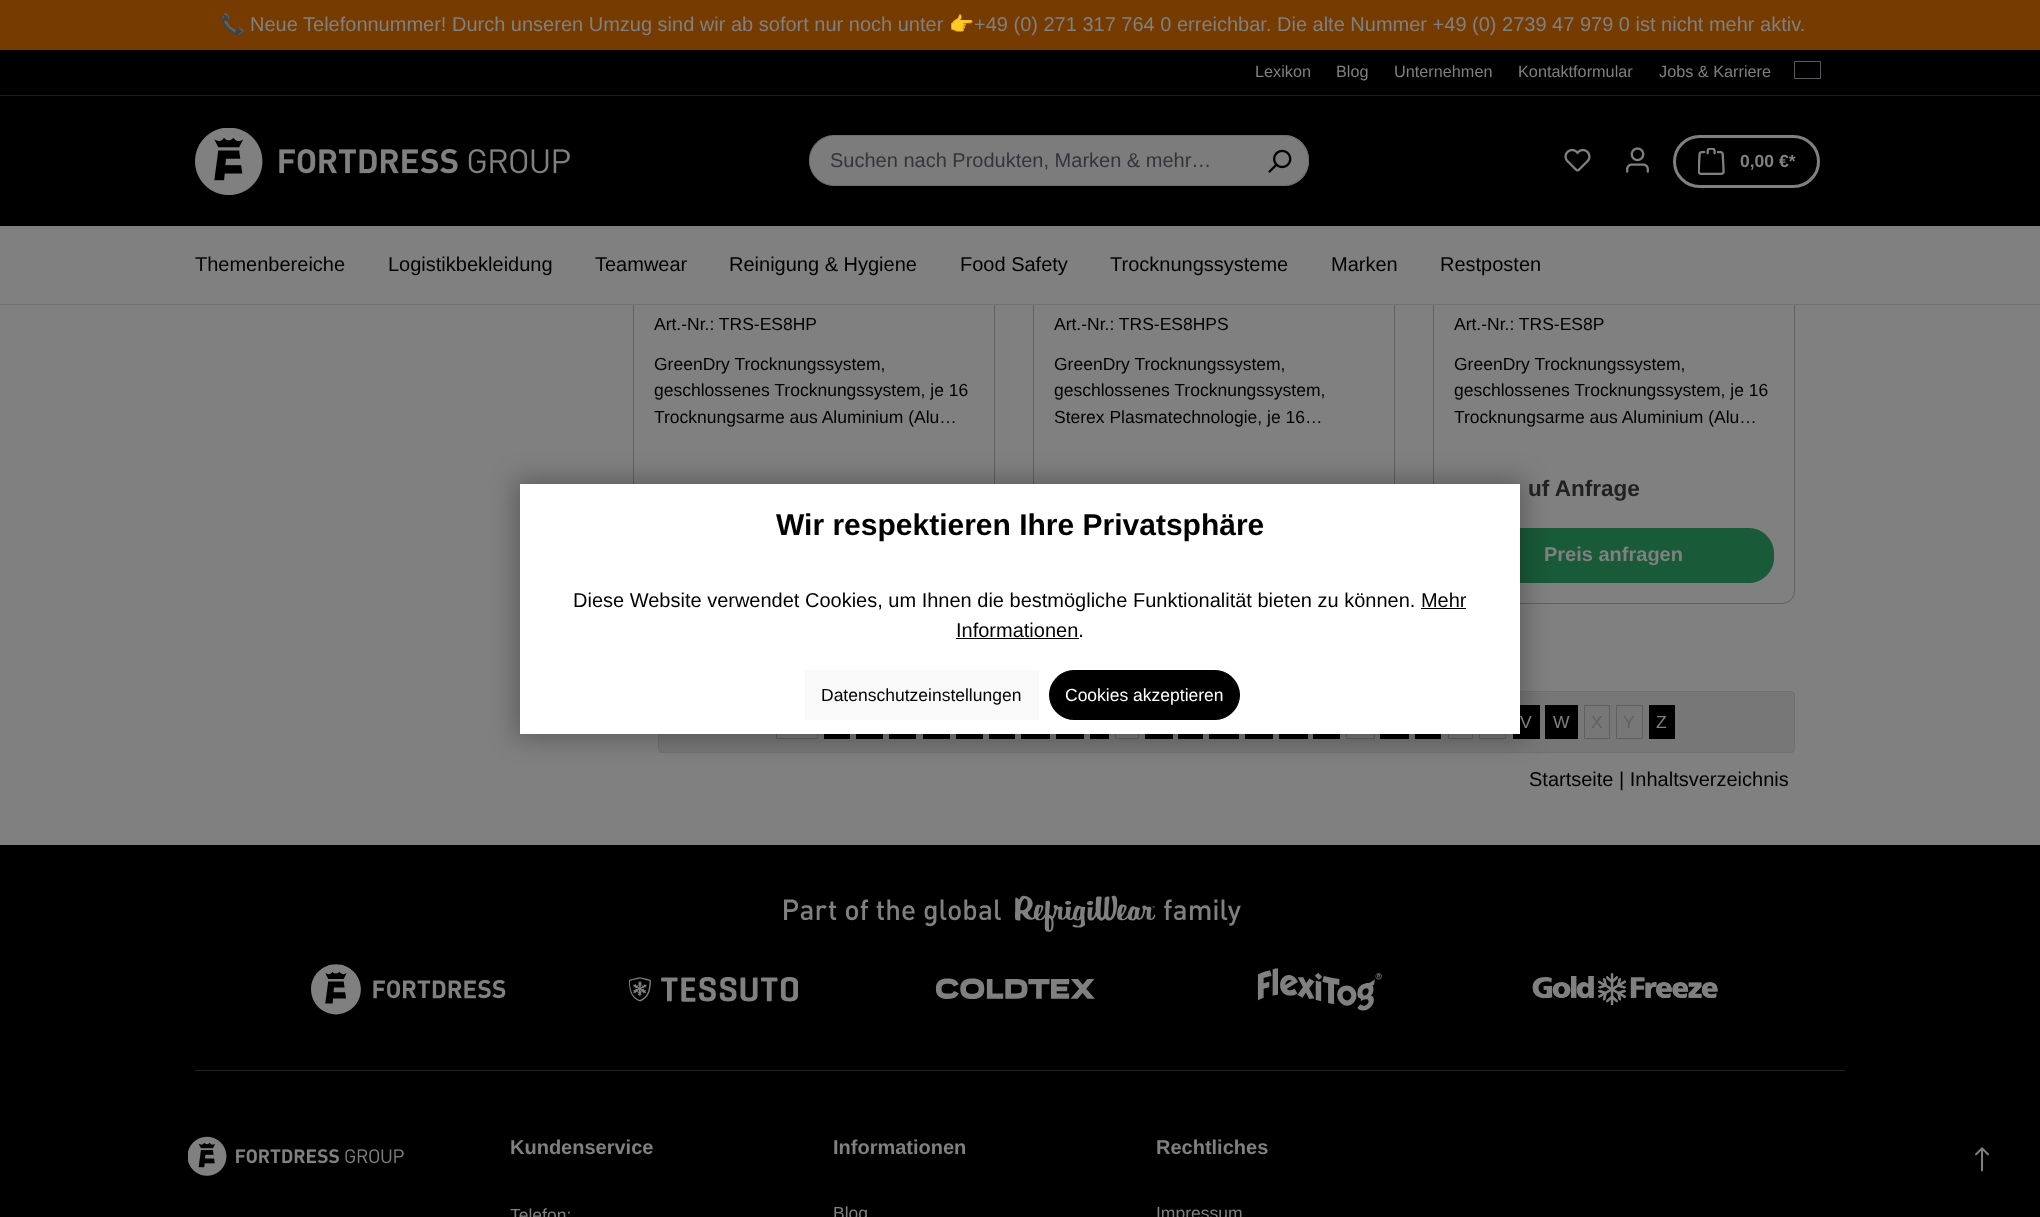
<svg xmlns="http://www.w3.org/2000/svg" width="2040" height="1217">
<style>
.a{font:20px Noto Color Emoji;fill:#808080}
.b{font:20px Liberation Sans;fill:#808080}
.c{font:16.25px Liberation Sans;fill:#808080}
.d{font:20px Liberation Sans;fill:#33353c}
.e{font:bold 17.5px Liberation Sans;fill:#808080}
.f{font:20px Liberation Sans;fill:#000}
.g{font:17.5px Liberation Sans;fill:#000}
.h{font:bold 22.5px Liberation Sans;fill:#212121}
.i{font:bold 20px Liberation Sans;fill:#808080}
.j{font:17.5px Liberation Sans;fill:#808080}
.k{font:17.5px Liberation Sans;fill:#5e6164}
.l{font:bold 30px Liberation Sans;fill:#000}
.m{font:17.5px Liberation Sans;fill:#fff}
</style>
<rect width="100%" height="100%" fill="#808080"/>
<path fill="none" stroke="#5e6164" d="M633.5 -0.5h361v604H633.5z"/>
<path fill="none" stroke="#5e6164" d="M1033.5 -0.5h361v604H1033.5z"/>
<rect fill="none" stroke="#5e6164" x="1433.5" y="-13.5" width="361" height="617" rx="12.5"/>
<path fill="#763b00" d="M0 0h2040v50H0z"/>
<path fill="#000" d="M0 50h2040v176H0z"/>
<path fill="#1b1b1b" d="M0 95h2040v1H0z"/>
<path fill="none" stroke="#575b5f" d="M1794.5 61.5h26v17H1794.5z"/>
<image href="1.png" x="195" y="128" width="375" height="67"/>
<path fill="#7c7c7d" stroke="#6d6d73" d="M834 135.5h416.5v50h-416.5c-13.5 0-24.5-11-24.5-24.5v-1c0-13.5 11-24.5 24.5-24.5z"/>
<path fill="#7c7c7d" d="M1250 135h34c14 0 25 11 25 25v1c0 14-11 25-25 25h-34z"/>
<path fill="#6d6d73" fill-rule="evenodd" d="M1250 135h34c14 0 25 11 25 25v1c0 14-11 25-25 25h-34zm0 1h34c13 0 24 11 24 24v1c0 13-11 24-24 24h-34z"/>
<image href="2.png" x="1268" y="149" width="24" height="24"/>
<image href="3.png" x="1564" y="148" width="27" height="24"/>
<image href="4.png" x="1626" y="147" width="23" height="26"/>
<rect fill="none" stroke="#808080" stroke-width="3" x="1674.5" y="136.5" width="144" height="50" rx="25"/>
<image href="5.png" x="1698" y="148" width="27" height="27"/>
<path fill="#808080" d="M633 226h1162v78H633z"/>
<path fill="#717171" d="M0 304h2040v1H0z"/>
<rect fill="#195a38" stroke="#195a38" x="1454.5" y="528.5" width="319" height="54" rx="24.5"/>
<rect fill="#777" stroke="#707070" x="658.5" y="691.5" width="1136" height="61" rx="3.5"/>
<path fill="none" stroke="#5e6164" d="M776.5 705.5h41v33H776.5z"/>
<path fill="none" stroke="#5e6164" d="M1115.5 705.5h23v33H1115.5z"/>
<path fill="none" stroke="#5e6164" d="M1346.5 705.5h28v33H1346.5z"/>
<path fill="none" stroke="#5e6164" d="M1448.5 705.5h24v33H1448.5z"/>
<path fill="none" stroke="#5e6164" d="M1479.5 705.5h26v33H1479.5z"/>
<path fill="#000" d="M1513 705h27v34H1513z"/>
<path fill="#000" d="M1545 705h33v34H1545z"/>
<path fill="none" stroke="#5e6164" d="M1584.5 705.5h25v33H1584.5z"/>
<path fill="none" stroke="#5e6164" d="M1616.5 705.5h26v33H1616.5z"/>
<path fill="#000" d="M1649 705h26v34H1649z"/>
<path fill="#000" d="M824 734h26v5H824z"/>
<path fill="#000" d="M856 734h27v5H856z"/>
<path fill="#000" d="M889 734h27v5H889z"/>
<path fill="#000" d="M923 734h27v5H923z"/>
<path fill="#000" d="M956 734h27v5H956z"/>
<path fill="#000" d="M989 734h26v5H989z"/>
<path fill="#000" d="M1021 734h29v5H1021z"/>
<path fill="#000" d="M1056 734h28v5H1056z"/>
<path fill="#000" d="M1090 734h19v5H1090z"/>
<path fill="#000" d="M1145 734h28v5H1145z"/>
<path fill="#000" d="M1178 734h25v5H1178z"/>
<path fill="#000" d="M1209 734h30v5H1209z"/>
<path fill="#000" d="M1245 734h28v5H1245z"/>
<path fill="#000" d="M1279 734h29v5H1279z"/>
<path fill="#000" d="M1313 734h27v5H1313z"/>
<path fill="#000" d="M1380 734h29v5H1380z"/>
<path fill="#000" d="M1415 734h26v5H1415z"/>
<path fill="#00000040" filter="blur(12.5px)" d="M514 478h1012v262H514z"/>
<path fill="#fff" d="M520 484h1000v250H520z"/>
<path fill="#000" d="M1421 608h45v1H1421z"/>
<path fill="#000" d="M956 638h123v1H956z"/>
<path fill="#f9f9f9" d="M805 670h234v50H805z"/>
<rect fill="#000" stroke="#000" x="1049.5" y="670.5" width="190" height="49" rx="24.5"/>
<path fill="#000" d="M0 845h2040v372H0z"/>
<path fill="#242424" d="M195 1070h1650v1H195z"/>
<image href="6.png" x="311" y="895" width="1407" height="120"/>
<image href="7.png" x="188" y="1136" width="216" height="40"/>
<image href="8.png" x="1975" y="1147" width="14" height="25"/>
<text class="a" x="220" y="31">📞</text>
<text class="b" x="250" y="31">Neue Telefonnummer! Durch unseren Umzug sind wir ab sofort nur noch unter</text>
<text class="a" x="949" y="31">👉</text>
<text class="b" x="974" y="31">+49 (0) 271 317 764 0 erreichbar. Die alte Nummer +49 (0) 2739 47 979 0 ist nicht mehr aktiv.</text>
<text class="c" x="1255" y="77">Lexikon</text>
<text class="c" x="1336" y="77">Blog</text>
<text class="c" x="1394" y="77">Unternehmen</text>
<text class="c" x="1518" y="77">Kontaktformular</text>
<text class="c" x="1659" y="77">Jobs &amp; Karriere</text>
<text class="d" x="830" y="167">Suchen nach Produkten, Marken &amp; mehr…</text>
<text class="e" x="1740" y="167">0,00 €*</text>
<text class="f" x="195" y="271">Themenbereiche</text>
<text class="f" x="388" y="271">Logistikbekleidung</text>
<text class="f" x="595" y="271">Teamwear</text>
<text class="f" x="729" y="271">Reinigung &amp; Hygiene</text>
<text class="f" x="960" y="271">Food Safety</text>
<text class="f" x="1110" y="271">Trocknungssysteme</text>
<text class="f" x="1331" y="271">Marken</text>
<text class="f" x="1440" y="271">Restposten</text>
<text class="g" x="654" y="330">Art.-Nr.: TRS-ES8HP</text>
<text class="g" x="654" y="370">GreenDry Trocknungssystem,</text>
<text class="g" x="654" y="396">geschlossenes Trocknungssystem, je 16</text>
<text class="g" x="654" y="423">Trocknungsarme aus Aluminium (Alu…</text>
<text class="g" x="1054" y="330">Art.-Nr.: TRS-ES8HPS</text>
<text class="g" x="1054" y="370">GreenDry Trocknungssystem,</text>
<text class="g" x="1054" y="396">geschlossenes Trocknungssystem,</text>
<text class="g" x="1054" y="423">Sterex Plasmatechnologie, je 16…</text>
<text class="g" x="1454" y="330">Art.-Nr.: TRS-ES8P</text>
<text class="g" x="1454" y="370">GreenDry Trocknungssystem,</text>
<text class="g" x="1454" y="396">geschlossenes Trocknungssystem, je 16</text>
<text class="g" x="1454" y="423">Trocknungsarme aus Aluminium (Alu…</text>
<text class="h" x="1528" y="496">uf Anfrage</text>
<text class="i" x="1544" y="561">Preis anfragen</text>
<text class="j" x="1520" y="728">V</text>
<text class="j" x="1553" y="728">W</text>
<text class="k" x="1591" y="728">X</text>
<text class="k" x="1623" y="728">Y</text>
<text class="j" x="1656" y="728">Z</text>
<text class="f" x="1529" y="786">Startseite | Inhaltsverzeichnis</text>
<text class="l" x="776" y="535">Wir respektieren Ihre Privatsphäre</text>
<text class="f" x="573" y="607">Diese Website verwendet Cookies, um Ihnen die bestmögliche Funktionalität bieten zu können. Mehr</text>
<text class="f" x="956" y="637">Informationen.</text>
<text class="g" x="821" y="701">Datenschutzeinstellungen</text>
<text class="m" x="1065" y="701">Cookies akzeptieren</text>
<text class="i" x="510" y="1154">Kundenservice</text>
<text class="j" x="510" y="1221">Telefon:</text>
<text class="i" x="833" y="1154">Informationen</text>
<text class="j" x="833" y="1219">Blog</text>
<text class="i" x="1156" y="1154">Rechtliches</text>
<text class="j" x="1156" y="1219">Impressum</text>
</svg>
